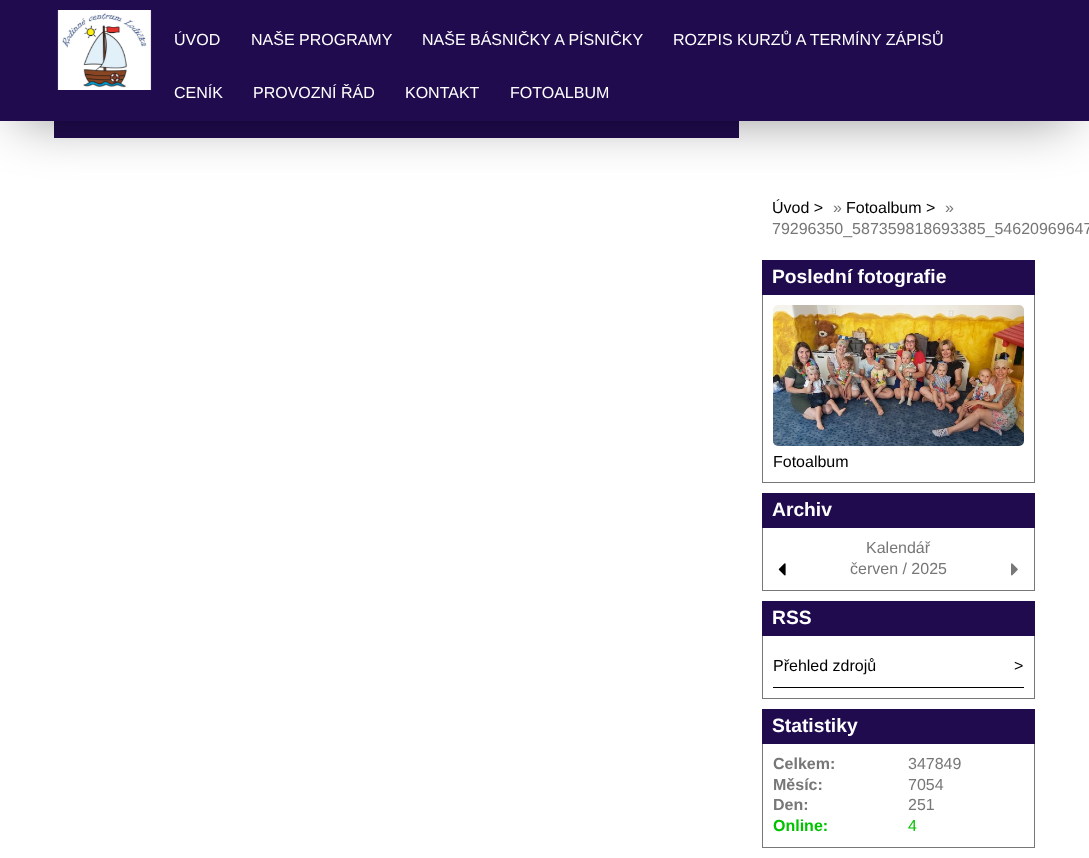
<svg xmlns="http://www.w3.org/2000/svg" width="1089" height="858">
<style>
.a{font:16px Liberation Sans;fill:#fff}
.b{font:16px Liberation Sans;fill:#000}
.c{font:16px Liberation Sans;fill:#777}
.d{font:bold 19.25px Liberation Sans;fill:#fff}
.e{font:bold 16px Liberation Sans;fill:#777}
.f{font:bold 16px Liberation Sans;fill:#00c300}
.g{font:16px Liberation Sans;fill:#00c300}
</style>
<rect width="100%" height="100%" fill="#fff"/>
<path fill="#200b4f" d="M54 121h685v17H54z"/>
<path fill="#00000073" filter="blur(27px)" d="M18 33h1053v85H18z"/>
<path fill="#200b4f" d="M0 0h1089v121H0z"/>
<image href="1.png" x="57" y="10" width="95" height="80"/>
<path fill="#200b4f" d="M762 260h273v35H762z"/>
<path fill="#777" d="M1034 295h1v188H1034z"/>
<path fill="#777" d="M762 482h273v1H762z"/>
<path fill="#777" d="M762 295h1v188H762z"/>
<image href="2.png" x="773" y="305" width="251" height="141"/>
<path fill="#200b4f" d="M762 493h273v35H762z"/>
<path fill="#777" d="M1034 528h1v63H1034z"/>
<path fill="#777" d="M762 590h273v1H762z"/>
<path fill="#777" d="M762 528h1v63H762z"/>
<image href="3.png" x="778" y="563" width="8" height="13"/>
<image href="4.png" x="1011" y="563" width="7" height="13"/>
<path fill="#200b4f" d="M762 601h273v35H762z"/>
<path fill="#777" d="M1034 636h1v63H1034z"/>
<path fill="#777" d="M762 698h273v1H762z"/>
<path fill="#777" d="M762 636h1v63H762z"/>
<path fill="#000" d="M773 687h251v1H773z"/>
<path fill="#200b4f" d="M762 709h273v35H762z"/>
<path fill="#777" d="M1034 744h1v104H1034z"/>
<path fill="#777" d="M762 847h273v1H762z"/>
<path fill="#777" d="M762 744h1v104H762z"/>
<text class="a" x="174" y="45">ÚVOD</text>
<text class="a" x="251" y="45">NAŠE PROGRAMY</text>
<text class="a" x="422" y="45">NAŠE BÁSNIČKY A PÍSNIČKY</text>
<text class="a" x="673" y="45">ROZPIS KURZŮ A TERMÍNY ZÁPISŮ</text>
<text class="a" x="174" y="98">CENÍK</text>
<text class="a" x="253" y="98">PROVOZNÍ ŘÁD</text>
<text class="a" x="405" y="98">KONTAKT</text>
<text class="a" x="510" y="98">FOTOALBUM</text>
<text class="b" x="772" y="213">Úvod &gt;</text>
<text class="c" x="833" y="213">»</text>
<text class="b" x="846" y="213">Fotoalbum &gt;</text>
<text class="c" x="945" y="213">»</text>
<text class="c" x="772" y="234">79296350_587359818693385_54620969647</text>
<text class="d" x="772" y="283">Poslední fotografie</text>
<text class="b" x="773" y="467">Fotoalbum</text>
<text class="d" x="772" y="516">Archiv</text>
<text class="c" x="866" y="553">Kalendář</text>
<text class="c" x="850" y="574">červen / 2025</text>
<text class="d" x="772" y="624">RSS</text>
<text class="b" x="773" y="671">Přehled zdrojů</text>
<text class="b" x="1014" y="671">&gt;</text>
<text class="d" x="772" y="732">Statistiky</text>
<text class="e" x="773" y="769">Celkem:</text>
<text class="c" x="908" y="769">347849</text>
<text class="e" x="773" y="790">Měsíc:</text>
<text class="c" x="908" y="790">7054</text>
<text class="e" x="773" y="810">Den:</text>
<text class="c" x="908" y="810">251</text>
<text class="f" x="773" y="831">Online:</text>
<text class="g" x="908" y="831">4</text>
</svg>
